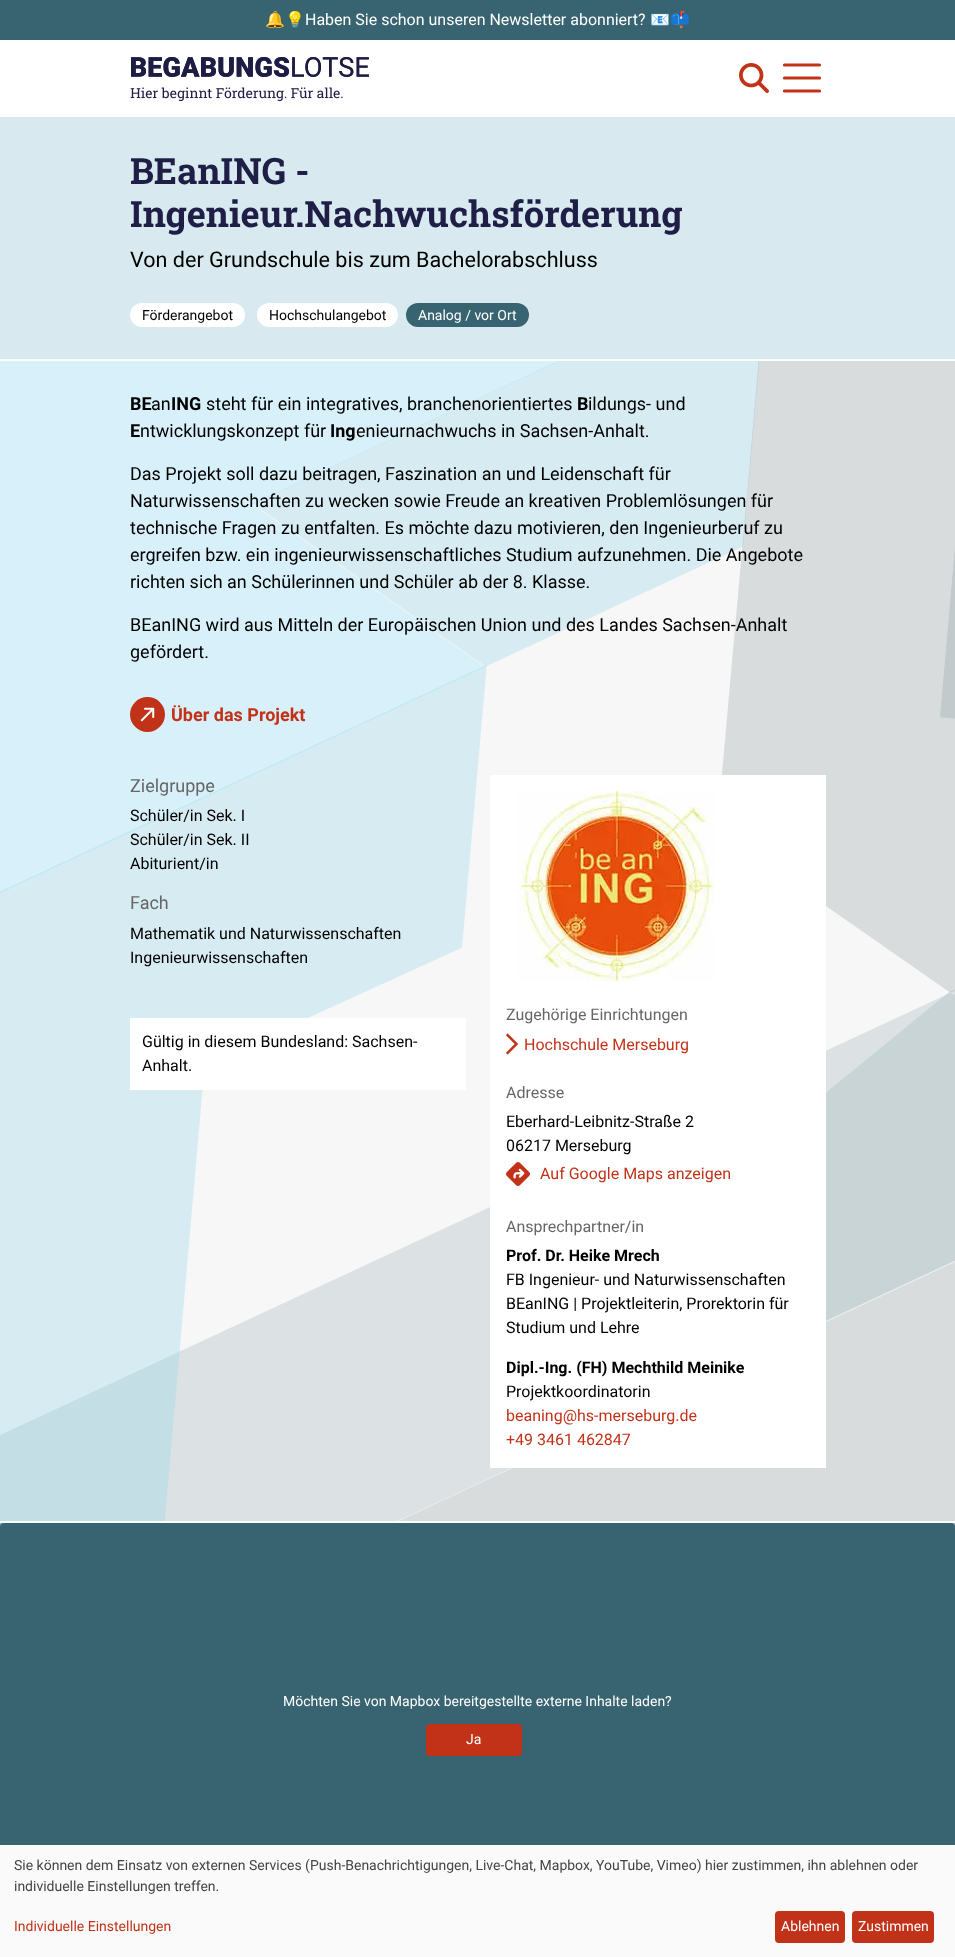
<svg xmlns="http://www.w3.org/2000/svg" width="955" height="1957">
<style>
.a{font:16px Noto Color Emoji;fill:#fff}
.b{font:16px Roboto;fill:#fff}
.c{font:bold 36.3px Roboto Slab;fill:#1e1e46}
.d{font:21.6px Roboto;fill:#000}
.e{font:14px Roboto;fill:#000}
.f{font:14px Roboto;fill:#fff}
.g{font:bold 18px Roboto;fill:#000}
.h{font:18px Roboto;fill:#000}
.i{font:bold 18px Roboto;fill:#c23219}
.j{font:18px Roboto;fill:#666}
.k{font:16px Roboto;fill:#000}
.l{font:16px Roboto;fill:#666}
.m{font:16px Roboto;fill:#c23219}
.n{font:bold 16px Roboto;fill:#000}
.o{font:14px Roboto;fill:#444}
.p{font:14px Roboto;fill:#c23219}
</style>
<rect width="100%" height="100%" fill="#eee"/>
<path fill="#376470" d="M0 0h955v40H0z"/>
<path fill="#fff" d="M0 40h955v77H0z"/>
<image href="1.png" x="130" y="57" width="239" height="44"/>
<image href="2.png" x="739" y="63" width="30" height="30"/>
<path fill="none" stroke="#c23219" stroke-width="3.2" stroke-linecap="round" d="M784.5 65h35m-35 13h35m-35 13h35"/>
<path fill="#d8eaf0" d="M0 117h955v242H0z"/>
<path fill="#fff" d="M0 359h955v2H0z"/>
<rect fill="#fff" x="130" y="303" width="115" height="24" rx="12"/>
<rect fill="#fff" x="257" y="303" width="141" height="24" rx="12"/>
<rect fill="#376470" x="406" y="303" width="123" height="24" rx="12"/>
<image href="3.png" x="0" y="361" width="955" height="1166"/>
<path fill="#ffffff80" d="M0 361h955v1160H0z"/>
<path fill="#fff" d="M0 1521h955v2H0z"/>
<image href="4.png" x="130" y="697" width="35" height="35"/>
<path fill="#fff" d="M130 1018h336v72H130z"/>
<path fill="#fff" d="M490 775h336v693H490z"/>
<image href="5.png" x="516" y="791" width="199" height="190"/>
<image href="6.png" x="506" y="1033" width="12" height="22"/>
<image href="7.png" x="506" y="1162" width="24" height="24"/>
<rect fill="#376470" y="1523" width="955" height="400" rx="4"/>
<rect fill="#c23219" x="426" y="1724" width="96" height="32" rx="4"/>
<path fill="#fafafa" d="M0 1845h955v112H0z"/>
<rect fill="#c23219" x="775" y="1911" width="70" height="32" rx="4"/>
<rect fill="#c23219" x="852" y="1911" width="82" height="32" rx="4"/>
<text class="a" x="265" y="25">🔔💡</text>
<text class="b" x="305" y="25">Haben Sie schon unseren Newsletter abonniert?</text>
<text class="a" x="650" y="25">📧📫</text>
<text class="c" x="130" y="184">BEanING -</text>
<text class="c" x="130" y="227">Ingenieur.Nachwuchsförderung</text>
<text class="d" x="130" y="267">Von der Grundschule bis zum Bachelorabschluss</text>
<text class="e" x="142" y="320">Förderangebot</text>
<text class="e" x="269" y="320">Hochschulangebot</text>
<text class="f" x="418" y="320">Analog / vor Ort</text>
<text class="g" x="130" y="410">BE</text>
<text class="h" x="151" y="410">an</text>
<text class="g" x="171" y="410">ING</text>
<text class="h" x="206" y="410">steht für ein integratives, branchenorientiertes</text>
<text class="g" x="577" y="410">B</text>
<text class="h" x="588" y="410">ildungs- und</text>
<text class="g" x="130" y="437">E</text>
<text class="h" x="140" y="437">ntwicklungskonzept für</text>
<text class="g" x="330" y="437">Ing</text>
<text class="h" x="356" y="437">enieurnachwuchs in Sachsen-Anhalt.</text>
<text class="h" x="130" y="480">Das Projekt soll dazu beitragen, Faszination an und Leidenschaft für</text>
<text class="h" x="130" y="507">Naturwissenschaften zu wecken sowie Freude an kreativen Problemlösungen für</text>
<text class="h" x="130" y="534">technische Fragen zu entfalten. Es möchte dazu motivieren, den Ingenieurberuf zu</text>
<text class="h" x="130" y="561">ergreifen bzw. ein ingenieurwissenschaftliches Studium aufzunehmen. Die Angebote</text>
<text class="h" x="130" y="588">richten sich an Schülerinnen und Schüler ab der 8. Klasse.</text>
<text class="h" x="130" y="631">BEanING wird aus Mitteln der Europäischen Union und des Landes Sachsen-Anhalt</text>
<text class="h" x="130" y="658">gefördert.</text>
<text class="i" x="171" y="721">Über das Projekt</text>
<text class="j" x="130" y="792">Zielgruppe</text>
<text class="k" x="130" y="821">Schüler/in Sek. I</text>
<text class="k" x="130" y="845">Schüler/in Sek. II</text>
<text class="k" x="130" y="869">Abiturient/in</text>
<text class="j" x="130" y="909">Fach</text>
<text class="k" x="130" y="939">Mathematik und Naturwissenschaften</text>
<text class="k" x="130" y="963">Ingenieurwissenschaften</text>
<text class="k" x="142" y="1047">Gültig in diesem Bundesland: Sachsen-</text>
<text class="k" x="142" y="1071">Anhalt.</text>
<text class="l" x="506" y="1020">Zugehörige Einrichtungen</text>
<text class="m" x="524" y="1050">Hochschule Merseburg</text>
<text class="l" x="506" y="1098">Adresse</text>
<text class="k" x="506" y="1127">Eberhard-Leibnitz-Straße 2</text>
<text class="k" x="506" y="1151">06217 Merseburg</text>
<text class="m" x="540" y="1179">Auf Google Maps anzeigen</text>
<text class="l" x="506" y="1232">Ansprechpartner/in</text>
<text class="n" x="506" y="1261">Prof. Dr. Heike Mrech</text>
<text class="k" x="506" y="1285">FB Ingenieur- und Naturwissenschaften</text>
<text class="k" x="506" y="1309">BEanING | Projektleiterin, Prorektorin für</text>
<text class="k" x="506" y="1333">Studium und Lehre</text>
<text class="n" x="506" y="1373">Dipl.-Ing. (FH) Mechthild Meinike</text>
<text class="k" x="506" y="1397">Projektkoordinatorin</text>
<text class="m" x="506" y="1421">beaning@hs-merseburg.de</text>
<text class="m" x="506" y="1445">+49 3461 462847</text>
<text class="f" x="283" y="1706">Möchten Sie von Mapbox bereitgestellte externe Inhalte laden?</text>
<text class="f" x="466" y="1744">Ja</text>
<text class="o" x="14" y="1870">Sie können dem Einsatz von externen Services (Push-Benachrichtigungen, Live-Chat, Mapbox, YouTube, Vimeo) hier zustimmen, ihn ablehnen oder</text>
<text class="o" x="14" y="1891">individuelle Einstellungen treffen.</text>
<text class="p" x="14" y="1931">Individuelle Einstellungen</text>
<text class="f" x="781" y="1931">Ablehnen</text>
<text class="f" x="858" y="1931">Zustimmen</text>
</svg>
